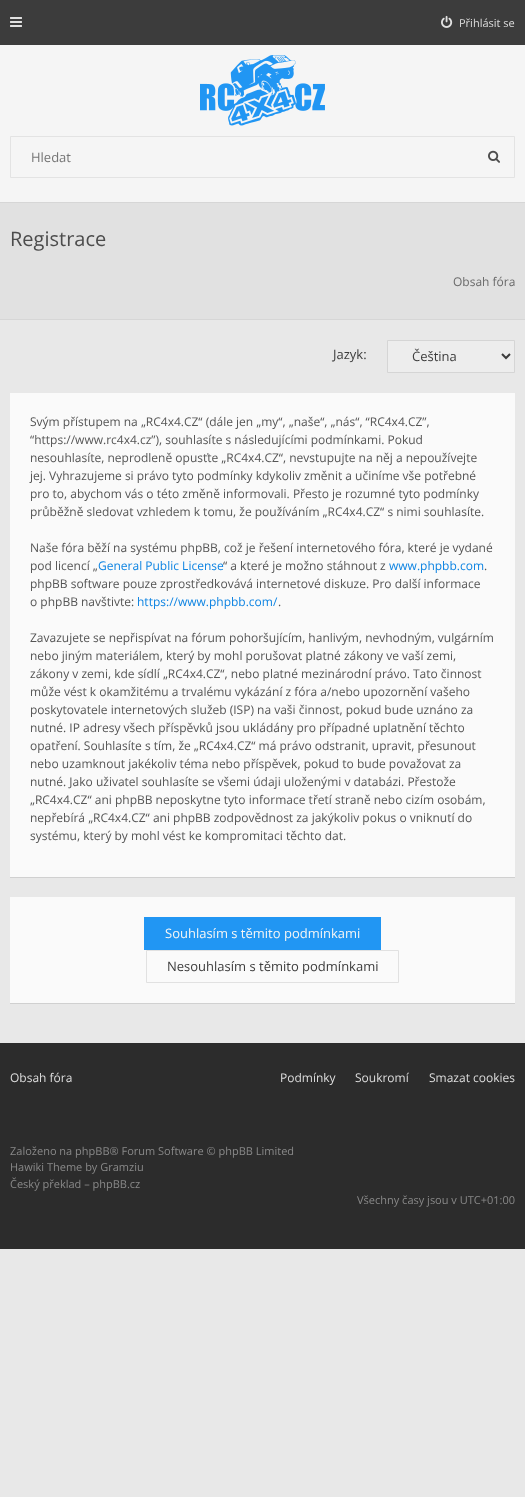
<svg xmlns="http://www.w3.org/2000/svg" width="525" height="1497">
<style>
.a{font:11px Open Sans;fill:#ddd}
.b{font:13px Open Sans;fill:#757575}
.c{font:20px Open Sans;fill:#4c4c4c}
.d{font:12px Open Sans;fill:#6a6a6a}
.e{font:13px Open Sans;fill:#3c3c3c}
.f{font:12px Open Sans;fill:#555}
.g{font:12px Open Sans;fill:#0c83e2}
.h{font:13px Open Sans;fill:#f5f5f5}
.i{font:12px Open Sans;fill:#ddd}
.j{font:11px Open Sans;fill:#898989}
</style>
<rect width="100%" height="100%" fill="#e8e8e8"/>
<path fill="#3c3c3c" d="M0 0h525v45H0z"/>
<image href="1.png" x="10" y="17" width="12" height="10"/>
<image href="2.png" x="441" y="15" width="12" height="13"/>
<path fill="#f5f5f5" d="M0 45h525v157H0z"/>
<image href="3.png" x="200" y="55" width="125" height="71"/>
<path fill="none" stroke="#e3e3e3" d="M10.5 136.5h504v41H10.5z"/>
<image href="4.png" x="488" y="150" width="12" height="13"/>
<path fill="#e1e1e1" d="M0 203h525v116H0z"/>
<path fill="#d6d6d6" d="M0 202h525v1H0z"/>
<path fill="#d6d6d6" d="M0 319h525v1H0z"/>
<path fill="#ededed" stroke="#d5d5d5" d="M387.5 340.5h127v32H387.5z"/>
<path fill="none" stroke="#3c3c3c" stroke-width="2" d="M502 354l4 4l4-4"/>
<path fill="#dcdcdc" d="M10 877h505v1H10z"/>
<path fill="#0000000d" filter="blur(0.5px)" d="M10 394h505v484H10z"/>
<path fill="#fafafa" d="M10 393h505v484H10z"/>
<path fill="#dcdcdc" d="M10 1003h505v1H10z"/>
<path fill="#0000000d" filter="blur(0.5px)" d="M10 898h505v106H10z"/>
<path fill="#fafafa" d="M10 897h505v106H10z"/>
<path fill="#2196f3" d="M144 917h237v33H144z"/>
<path fill="none" stroke="#e1e1e1" d="M146.5 950.5h252v32H146.5z"/>
<path fill="#2c2c2c" d="M0 1043h525v206H0z"/>
<text class="a" x="459" y="27">Přihlásit se</text>
<text class="b" x="31" y="162">Hledat</text>
<text class="c" x="10" y="246">Registrace</text>
<text class="d" x="453" y="286">Obsah fóra</text>
<text class="e" x="333" y="359">Jazyk:</text>
<text class="e" x="412" y="361">Čeština</text>
<text class="f" x="30" y="426">Svým přístupem na „RC4x4.CZ“ (dále jen „my“, „naše“, „nás“, “RC4x4.CZ”,</text>
<text class="f" x="30" y="444">“https://www.rc4x4.cz”), souhlasíte s následujícími podmínkami. Pokud</text>
<text class="f" x="30" y="462">nesouhlasíte, neprodleně opusťte „RC4x4.CZ“, nevstupujte na něj a nepoužívejte</text>
<text class="f" x="30" y="480">jej. Vyhrazujeme si právo tyto podmínky kdykoliv změnit a učiníme vše potřebné</text>
<text class="f" x="30" y="498">pro to, abychom vás o této změně informovali. Přesto je rozumné tyto podmínky</text>
<text class="f" x="30" y="516">průběžně sledovat vzhledem k tomu, že používáním „RC4x4.CZ“ s nimi souhlasíte.</text>
<text class="f" x="30" y="552">Naše fóra běží na systému phpBB, což je řešení internetového fóra, které je vydané</text>
<text class="f" x="30" y="570">pod licencí „</text>
<text class="g" x="98" y="570">General Public License</text>
<text class="f" x="223" y="570">“ a které je možno stáhnout z</text>
<text class="g" x="389" y="570">www.phpbb.com</text>
<text class="f" x="484" y="570">.</text>
<text class="f" x="30" y="588">phpBB software pouze zprostředkovává internetové diskuze. Pro další informace</text>
<text class="f" x="30" y="606">o phpBB navštivte:</text>
<text class="g" x="137" y="606">https://www.phpbb.com/</text>
<text class="f" x="278" y="606">.</text>
<text class="f" x="30" y="642">Zavazujete se nepřispívat na fórum pohoršujícím, hanlivým, nevhodným, vulgárním</text>
<text class="f" x="30" y="660">nebo jiným materiálem, který by mohl porušovat platné zákony ve vaší zemi,</text>
<text class="f" x="30" y="678">zákony v zemi, kde sídlí „RC4x4.CZ“, nebo platné mezinárodní právo. Tato činnost</text>
<text class="f" x="30" y="696">může vést k okamžitému a trvalému vykázání z fóra a/nebo upozornění vašeho</text>
<text class="f" x="30" y="714">poskytovatele internetových služeb (ISP) na vaši činnost, pokud bude uznáno za</text>
<text class="f" x="30" y="732">nutné. IP adresy všech příspěvků jsou ukládány pro případné uplatnění těchto</text>
<text class="f" x="30" y="750">opatření. Souhlasíte s tím, že „RC4x4.CZ“ má právo odstranit, upravit, přesunout</text>
<text class="f" x="30" y="768">nebo uzamknout jakékoliv téma nebo příspěvek, pokud to bude považovat za</text>
<text class="f" x="30" y="786">nutné. Jako uživatel souhlasíte se všemi údaji uloženými v databázi. Přestože</text>
<text class="f" x="30" y="804">„RC4x4.CZ“ ani phpBB neposkytne tyto informace třetí straně nebo cizím osobám,</text>
<text class="f" x="30" y="822">nepřebírá „RC4x4.CZ“ ani phpBB zodpovědnost za jakýkoliv pokus o vniknutí do</text>
<text class="f" x="30" y="840">systému, který by mohl vést ke kompromitaci těchto dat.</text>
<text class="h" x="165" y="938">Souhlasím s těmito podmínkami</text>
<text class="e" x="167" y="971">Nesouhlasím s těmito podmínkami</text>
<text class="i" x="10" y="1082">Obsah fóra</text>
<text class="i" x="280" y="1082">Podmínky</text>
<text class="i" x="355" y="1082">Soukromí</text>
<text class="i" x="429" y="1082">Smazat cookies</text>
<text class="j" x="10" y="1155">Založeno na phpBB® Forum Software © phpBB Limited</text>
<text class="j" x="10" y="1171">Hawiki Theme by Gramziu</text>
<text class="j" x="10" y="1188">Český překlad – phpBB.cz</text>
<text class="j" x="357" y="1204">Všechny časy jsou v UTC+01:00</text>
</svg>
